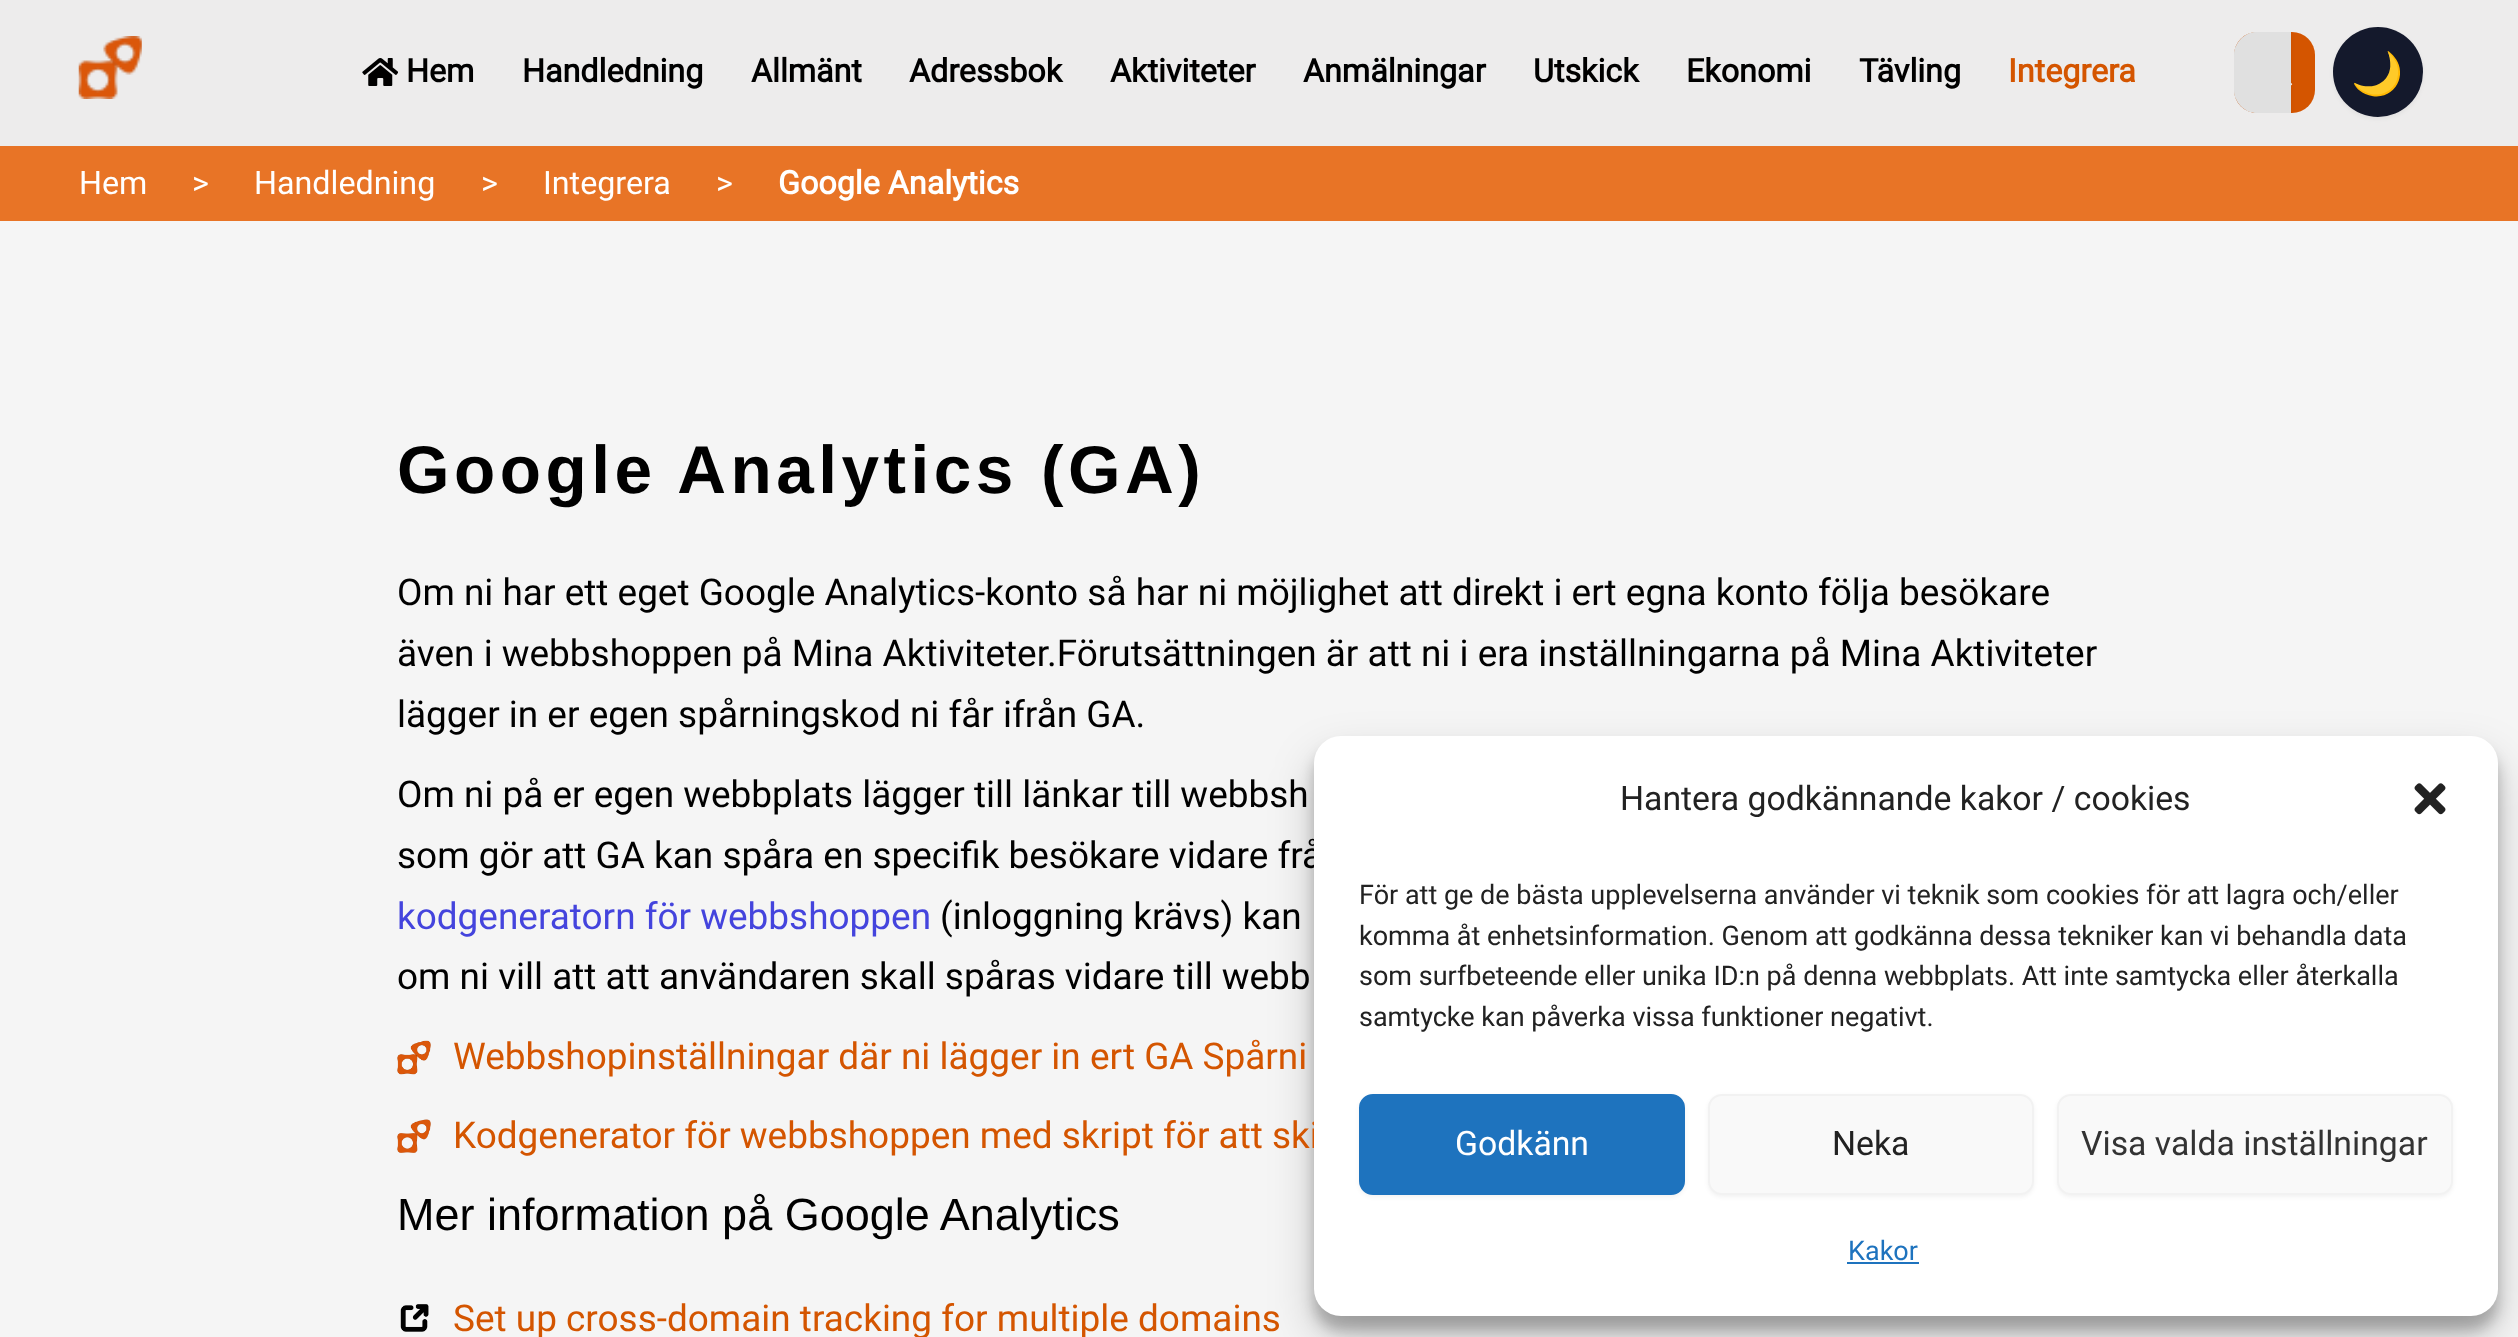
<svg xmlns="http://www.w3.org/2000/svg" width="2518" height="1337">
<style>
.a{font:bold 32.25px Roboto;fill:#000}
.b{font:bold 32.25px Roboto;fill:#d45500}
.c{font:42px Noto Color Emoji;fill:#fff}
.d{font:32.25px Roboto;fill:#fff}
.e{font:bold 32.25px Roboto;fill:#fff}
.f{font:bold 67.5px Liberation Sans;letter-spacing:4.5px;fill:#000}
.g{font:36.95px Roboto;fill:#000}
.h{font:36.95px Roboto;fill:#44d}
.i{font:36.95px Roboto;fill:#d45500}
.j{font:45px Liberation Sans;fill:#000}
.k{font:33.75px Roboto;fill:#222}
.l{font:27px Roboto;fill:#222}
.m{font:33.75px Roboto;fill:#fff}
.n{font:33.75px Roboto;fill:#333}
.o{font:27px Roboto;fill:#1e73be}
</style>
<defs>
<clipPath id="clip1"><rect x="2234" y="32" width="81" height="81" rx="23"/></clipPath>
<clipPath id="clip2"><rect x="2234" y="32" width="81" height="81" rx="23"/></clipPath>
</defs>
<rect width="100%" height="100%" fill="#f5f5f5"/>
<path fill="#edecec" d="M0 0h2518v146H0z"/>
<image href="1.png" x="78" y="36" width="64" height="63"/>
<image href="2.png" x="362" y="58" width="36" height="28"/>
<rect fill="#d45500" x="2234" y="32" width="81" height="81" rx="23"/>
<image href="3.png" x="2291" y="83" width="2" height="3"/>
<g clip-path="url(#clip1)">
<path fill="#0000000d" filter="blur(2px)" d="M2234 34h57v81H2234z"/>
</g>
<path fill="#e0e0e0" d="M2257 32h34v81h-34c-12.5 0-23-10.5-23-23v-35c0-12.5 10.5-23 23-23z"/>
<g clip-path="url(#clip2)">
<path fill="#e0e0e0" d="M2247 32h44v2H2247z"/>
<path fill="#e0e0e0" d="M2245 110h46v2H2245z"/>
<path fill="#e0e0e0" d="M2234 45h2v55H2234z"/>
</g>
<rect fill="#0000000d" filter="blur(2px)" x="2333" y="29" width="90" height="90" rx="45"/>
<circle fill="#14192c" cx="2378" cy="72" r="45"/>
<path fill="#e87426" d="M0 146h2518v75H0z"/>
<image href="4.png" x="397" y="1040" width="34" height="35"/>
<image href="5.png" x="397" y="1119" width="34" height="34"/>
<image href="6.png" x="400" y="1304" width="29" height="28"/>
<rect fill="#0000003b" filter="blur(7px)" x="1314" y="749" width="1184" height="581" rx="27"/>
<rect fill="#00000030" filter="blur(22.5px)" x="1314" y="758" width="1184" height="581" rx="27"/>
<text class="a" x="406" y="82">Hem</text>
<text class="a" x="522" y="82">Handledning</text>
<text class="a" x="751" y="82">Allmänt</text>
<text class="a" x="909" y="82">Adressbok</text>
<text class="a" x="1110" y="82">Aktiviteter</text>
<text class="a" x="1303" y="82">Anmälningar</text>
<text class="a" x="1533" y="82">Utskick</text>
<text class="a" x="1686" y="82">Ekonomi</text>
<text class="a" x="1859" y="82">Tävling</text>
<text class="b" x="2008" y="82">Integrera</text>
<text class="c" x="2351" y="88">🌙</text>
<text class="d" x="79" y="194">Hem</text>
<text class="d" x="192" y="194">&gt;</text>
<text class="d" x="254" y="194">Handledning</text>
<text class="d" x="481" y="194">&gt;</text>
<text class="d" x="543" y="194">Integrera</text>
<text class="d" x="716" y="194">&gt;</text>
<text class="e" x="778" y="194">Google Analytics</text>
<text class="f" x="397" y="493">Google Analytics (GA)</text>
<text class="g" x="397" y="605">Om ni har ett eget Google Analytics-konto så har ni möjlighet att direkt i ert egna konto följa besökare</text>
<text class="g" x="397" y="666">även i webbshoppen på Mina Aktiviteter.Förutsättningen är att ni i era inställningarna på Mina Aktiviteter</text>
<text class="g" x="397" y="727">lägger in er egen spårningskod ni får ifrån GA.</text>
<text class="g" x="397" y="807">Om ni på er egen webbplats lägger till länkar till webbsh</text>
<text class="g" x="397" y="868">som gör att GA kan spåra en specifik besökare vidare frå</text>
<text class="h" x="397" y="929">kodgeneratorn för webbshoppen</text>
<text class="g" x="940" y="929">(inloggning krävs) kan</text>
<text class="g" x="397" y="989">om ni vill att att användaren skall spåras vidare till webb</text>
<text class="i" x="453" y="1069">Webbshopinställningar där ni lägger in ert GA Spårni</text>
<text class="i" x="453" y="1148">Kodgenerator för webbshoppen med skript för att ski</text>
<text class="j" x="397" y="1230">Mer information på Google Analytics</text>
<text class="i" x="453" y="1331">Set up cross-domain tracking for multiple domains</text>
<rect fill="#fff" x="1314" y="736" width="1184" height="580" rx="27"/>
<text class="k" x="1620" y="810">Hantera godkännande kakor / cookies</text>
<image href="7.png" x="2414" y="783" width="32" height="32"/>
<text class="l" x="1359" y="904">För att ge de bästa upplevelserna använder vi teknik som cookies för att lagra och/eller</text>
<text class="l" x="1359" y="945">komma åt enhetsinformation. Genom att godkänna dessa tekniker kan vi behandla data</text>
<text class="l" x="1359" y="985">som surfbeteende eller unika ID:n på denna webbplats. Att inte samtycka eller återkalla</text>
<text class="l" x="1359" y="1026">samtycke kan påverka vissa funktioner negativt.</text>
<rect fill="#0000000d" filter="blur(2px)" x="1359" y="1096" width="326" height="101" rx="14"/>
<rect fill="#1e73be" stroke="#1e73be" stroke-width="2" x="1360" y="1095" width="324" height="99" rx="13"/>
<text class="m" x="1455" y="1155">Godkänn</text>
<rect fill="#0000000d" filter="blur(2px)" x="1708" y="1096" width="326" height="101" rx="14"/>
<rect fill="#f9f9f9" stroke="#f2f2f2" stroke-width="2" x="1709" y="1095" width="324" height="99" rx="13"/>
<text class="k" x="1832" y="1155">Neka</text>
<rect fill="#0000000d" filter="blur(2px)" x="2057" y="1096" width="396" height="101" rx="14"/>
<rect fill="#f9f9f9" stroke="#f2f2f2" stroke-width="2" x="2058" y="1095" width="394" height="99" rx="13"/>
<text class="n" x="2081" y="1155">Visa valda inställningar</text>
<text class="o" x="1848" y="1260">Kakor</text>
<path fill="#1e73be" d="M1847 1262h72v2H1847z"/>
</svg>
